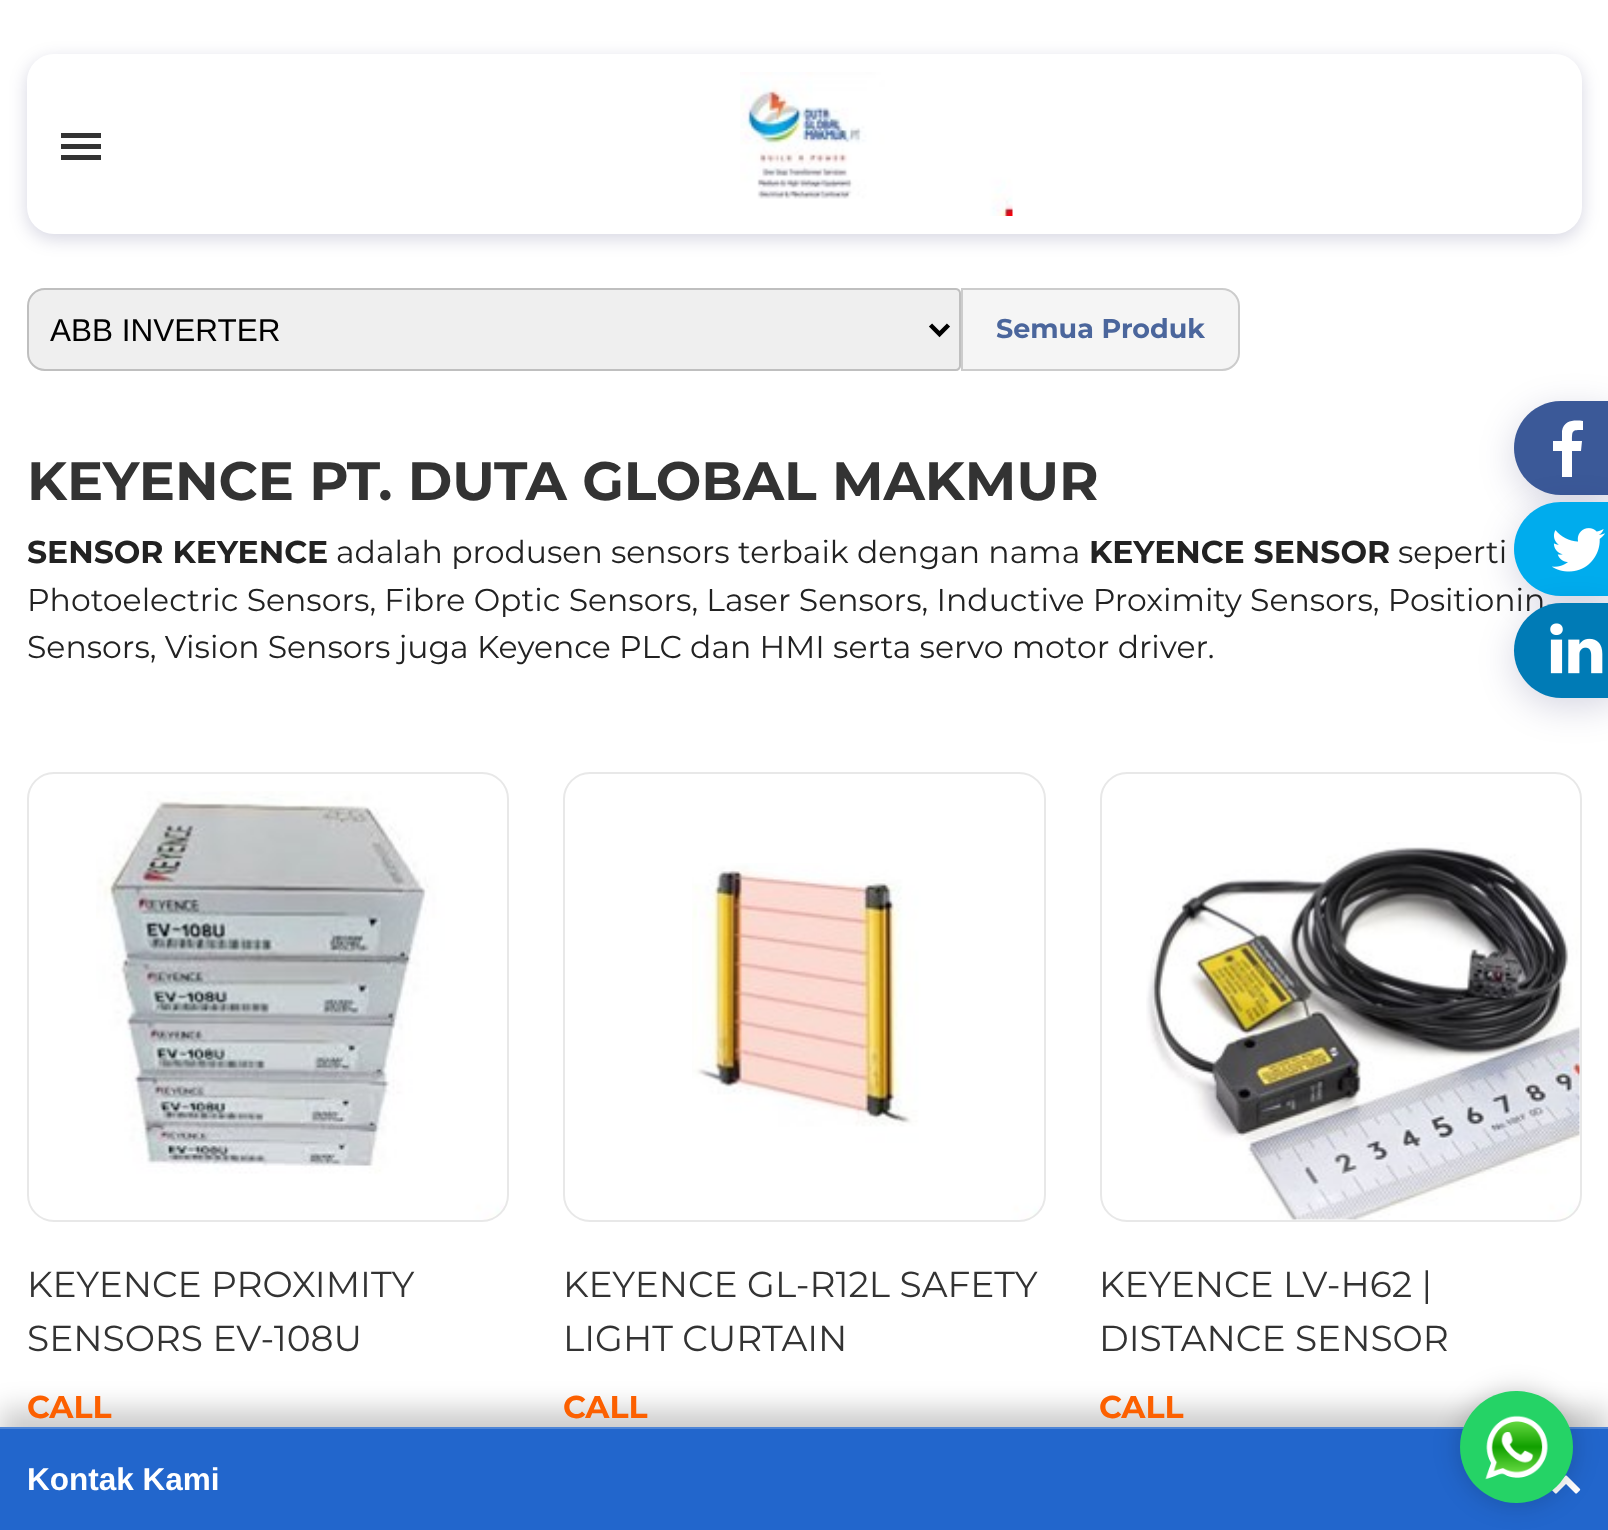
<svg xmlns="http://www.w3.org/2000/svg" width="1608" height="1530">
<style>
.a{font:31.5px Liberation Sans;fill:#000}
.b{font:bold 27px Montserrat;fill:#4b669c}
.c{font:bold 54px Montserrat;fill:#333}
.d{font:bold 31.5px Montserrat;fill:#222}
.e{font:31.5px Montserrat;fill:#222}
.f{font:36px Montserrat;fill:#333}
.g{font:bold 31.5px Montserrat;fill:#fc6000}
.h{font:bold 31.5px Liberation Sans;fill:#fff}
</style>
<rect width="100%" height="100%" fill="#fff"/>
<rect fill="#00004b29" filter="blur(9px)" x="27" y="59" width="1555" height="180" rx="27"/>
<rect fill="#fff" x="27" y="54" width="1555" height="180" rx="27"/>
<path fill="#333" d="M61 144h40v5H61z"/>
<path fill="#333" d="M61 133h40v5H61z"/>
<path fill="#333" d="M61 155h40v5H61z"/>
<image href="1.png" x="740" y="72" width="273" height="144"/>
<path fill="#efefef" d="M45 288h911c3 0 5 2 5 5v73c0 3-2 5-5 5h-911c-10 0-18-8-18-18v-47c0-10 8-18 18-18z"/>
<path fill="none" stroke="#00000033" stroke-width="2" d="M45 289h911c2 0 4 2 4 4v73c0 2-2 4-4 4h-911c-9.5 0-17-7.5-17-17v-47c0-9.5 7.5-17 17-17z"/>
<path fill="none" stroke="#000" stroke-width="4.5" d="M930.5 325l9 9l9-9"/>
<path fill="#f5f5f5" stroke="#ccc" stroke-width="2" d="M962 289h260c9.5 0 17 7.5 17 17v47c0 9.5-7.5 17-17 17h-260z"/>
<image href="2.png" x="96" y="791" width="408" height="430"/>
<rect fill="none" stroke="#e8e8e8" stroke-width="2" x="28" y="773" width="480" height="448" rx="26"/>
<image href="3.png" x="692" y="863" width="349" height="358"/>
<rect fill="none" stroke="#e8e8e8" stroke-width="2" x="564" y="773" width="481" height="448" rx="26"/>
<image href="4.png" x="1146" y="842" width="434" height="379"/>
<rect fill="none" stroke="#e8e8e8" stroke-width="2" x="1101" y="773" width="480" height="448" rx="26"/>
<path fill="#00000033" filter="blur(13.5px)" d="M0 1409h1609v103H0z"/>
<path fill="#26c" d="M0 1429h1608v101H0z"/>
<path fill="#4e85d6" d="M0 1427h1608v2H0z"/>
<image href="8.png" x="1552" y="1475" width="29" height="19"/>
<rect fill="#00000033" filter="blur(13.5px)" x="1460" y="1391" width="113" height="112" rx="56"/>
<rect fill="#25d366" x="1460" y="1391" width="113" height="112" rx="56"/>
<image href="5.png" x="1485" y="1415" width="63" height="65"/>
<rect fill="#00004b29" filter="blur(18px)" x="1514" y="410" width="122" height="94" rx="47"/>
<path fill="#3b5998" d="M1561 401h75v94h-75c-26 0-47-21-47-47c0-26 21-47 47-47z"/>
<path fill="#fff" d="M1583 421v9c-11 0-11 0-11 11h10l-1 10h-9v26h-10v-26h-9v-10h9v-10c2-11 12-11 21-10z"/>
<rect fill="#00004b29" filter="blur(18px)" x="1514" y="511" width="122" height="94" rx="47"/>
<text class="a" x="50" y="341">ABB INVERTER</text>
<text class="b" x="996" y="338">Semua Produk</text>
<text class="c" x="27" y="500">KEYENCE PT. DUTA GLOBAL MAKMUR</text>
<text class="d" x="27" y="563">SENSOR KEYENCE</text>
<text class="e" x="336" y="563">adalah produsen sensors terbaik dengan nama</text>
<text class="d" x="1089" y="563">KEYENCE SENSOR</text>
<text class="e" x="1398" y="563">seperti</text>
<text class="e" x="27" y="611">Photoelectric Sensors, Fibre Optic Sensors, Laser Sensors, Inductive Proximity Sensors, Positionin</text>
<text class="e" x="27" y="658">Sensors, Vision Sensors juga Keyence PLC dan HMI serta servo motor driver.</text>
<text class="f" x="27" y="1297">KEYENCE PROXIMITY</text>
<text class="f" x="27" y="1351">SENSORS EV-108U</text>
<text class="g" x="27" y="1418">CALL</text>
<text class="f" x="563" y="1297">KEYENCE GL-R12L SAFETY</text>
<text class="f" x="563" y="1351">LIGHT CURTAIN</text>
<text class="g" x="563" y="1418">CALL</text>
<text class="f" x="1099" y="1297">KEYENCE LV-H62 |</text>
<text class="f" x="1099" y="1351">DISTANCE SENSOR</text>
<text class="g" x="1099" y="1418">CALL</text>
<path fill="#00aced" d="M1561 502h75v94h-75c-26 0-47-21-47-47c0-26 21-47 47-47z"/>
<image href="6.png" x="1552" y="528" width="53" height="44"/>
<rect fill="#00004b29" filter="blur(18px)" x="1514" y="612" width="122" height="95" rx="47.5"/>
<path fill="#007bb6" d="M1561.5 603h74.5v95h-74.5c-26 0-47.5-21.5-47.5-47.5c0-26 21.5-47.5 47.5-47.5z"/>
<image href="7.png" x="1550" y="623" width="53" height="51"/>
<text class="h" x="27" y="1490">Kontak Kami</text>
</svg>
